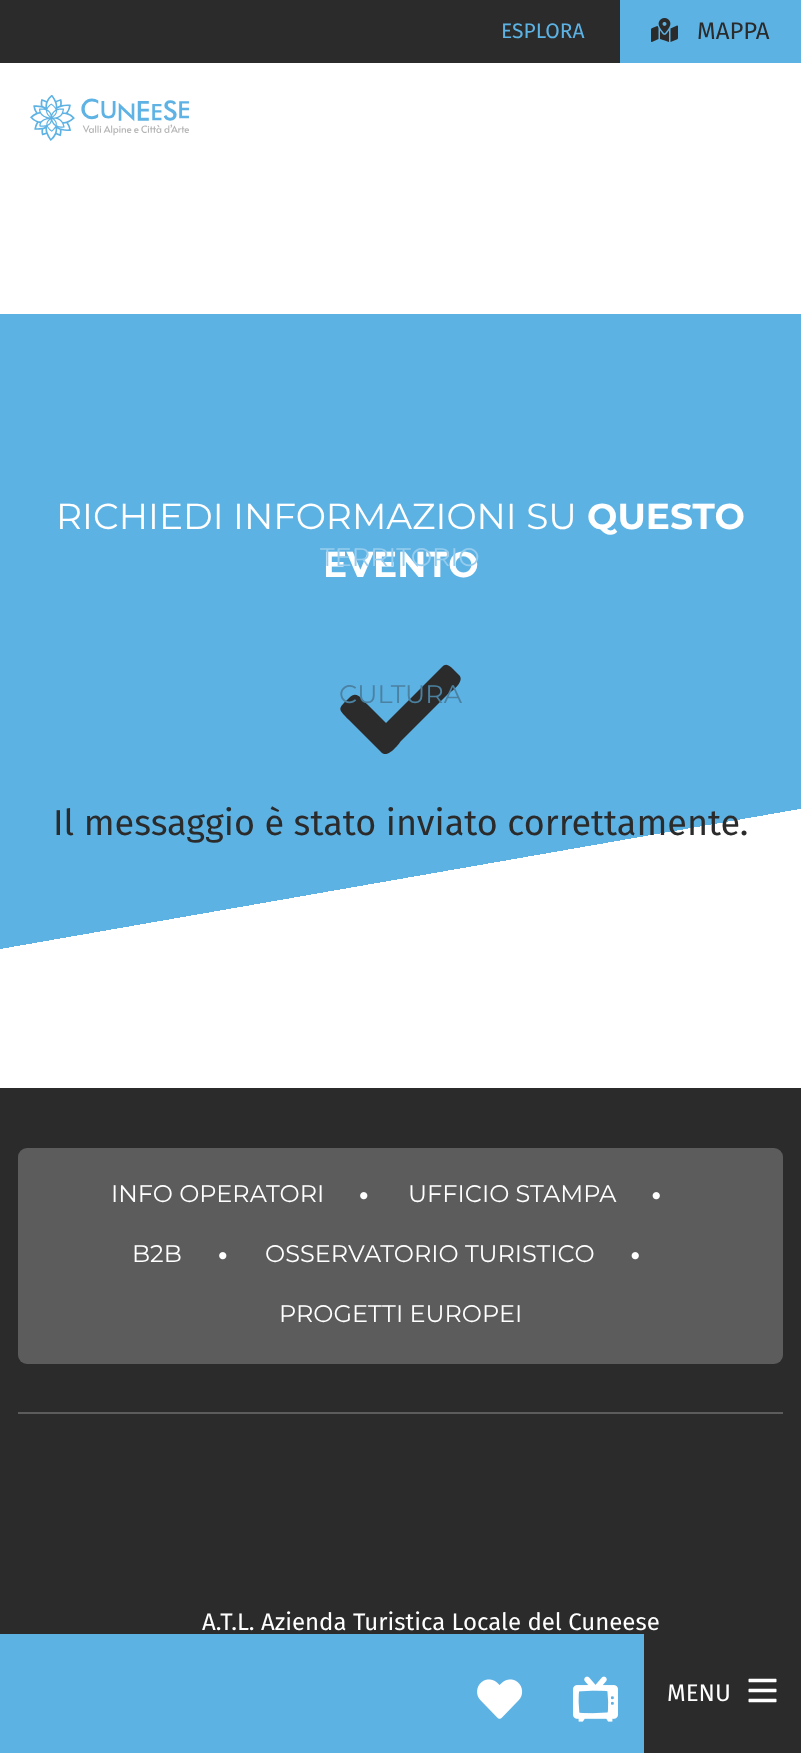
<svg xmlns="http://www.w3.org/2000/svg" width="801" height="1753">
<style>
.a{font:21px Fira Sans;fill:#5db2e4}
.b{font:24px Fira Sans;fill:#2b2b2b}
.c{font:36px Montserrat;fill:#fff}
.d{font:bold 36px Montserrat;fill:#fff}
.e{font:36px Fira Sans;fill:#2b2b2b}
.f{font:25.5px Montserrat;fill:#96cdee}
.g{font:25.5px Montserrat;fill:#4b81a1}
.h{font:24px Montserrat;fill:#fff}
.i{font:24px Fira Sans;fill:#fff}
</style>
<defs>
<linearGradient id="g1" gradientUnits="userSpaceOnUse" x1="333" y1="255" x2="468" y2="1026"><stop offset="0.8" stop-color="#5db2e4"/><stop offset="0.8" stop-color="#fff"/><stop offset="1" stop-color="#fff"/></linearGradient>
</defs>
<rect width="100%" height="100%" fill="#fff"/>
<path fill="#2b2b2b" d="M0 0h620v63H0z"/>
<path fill="#5db2e4" d="M620 0h181v63H620z"/>
<image href="1.png" x="651" y="18" width="27" height="24"/>
<image href="2.png" x="30" y="95" width="159" height="46"/>
<path fill="url(#g1)" d="M0 314h801v635H0z"/>
<path fill="#2b2b2b" d="M381 752l-32-32c-12-12-11-11 0-22c8-8 12 1 19 7l18 18l56-56c4-5 8-1 11 2l6 6c7 7-10 18-12 20l-46 46c-1 1-13 19-20 11z"/>
<path fill="#2b2b2b" d="M0 1088h801v546H0z"/>
<rect fill="#5c5c5c" x="18" y="1148" width="765" height="216" rx="9"/>
<image href="3.png" x="360" y="1192" width="8" height="8"/>
<image href="4.png" x="652" y="1192" width="8" height="8"/>
<image href="3.png" x="219" y="1252" width="8" height="8"/>
<image href="4.png" x="631" y="1252" width="8" height="8"/>
<path fill="#5c5c5c" d="M18 1412h765v2H18z"/>
<path fill="#5db2e4" d="M0 1634h644v119H0z"/>
<image href="5.png" x="477" y="1679" width="46" height="40"/>
<image href="6.png" x="573" y="1676" width="45" height="46"/>
<path fill="#2b2b2b" d="M644 1634h157v119H644z"/>
<image href="7.png" x="748" y="1678" width="29" height="25"/>
<text class="a" x="501" y="38">ESPLORA</text>
<text class="b" x="697" y="39">MAPPA</text>
<text class="c" x="56" y="529">RICHIEDI INFORMAZIONI SU</text>
<text class="d" x="587" y="529">QUESTO</text>
<text class="d" x="323" y="577">EVENTO</text>
<text class="e" x="53" y="835">Il messaggio è stato inviato correttamente.</text>
<text class="f" x="320" y="566">TERRITORIO</text>
<text class="g" x="339" y="703">CULTURA</text>
<text class="h" x="111" y="1202">INFO OPERATORI</text>
<text class="h" x="408" y="1202">UFFICIO STAMPA</text>
<text class="h" x="132" y="1262">B2B</text>
<text class="h" x="265" y="1262">OSSERVATORIO TURISTICO</text>
<text class="h" x="279" y="1322">PROGETTI EUROPEI</text>
<text class="i" x="202" y="1630">A.T.L. Azienda Turistica Locale del Cuneese</text>
<text class="i" x="667" y="1701">MENU</text>
</svg>
